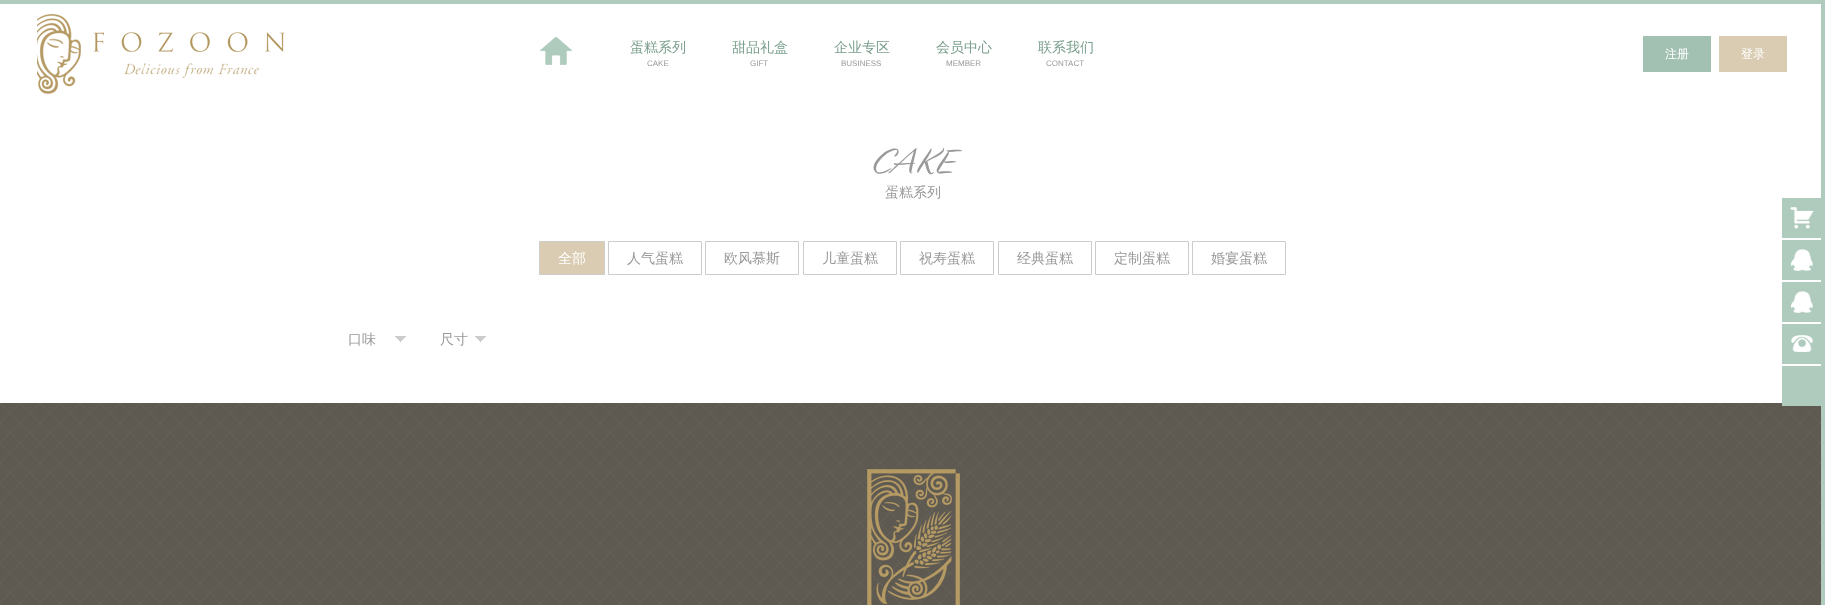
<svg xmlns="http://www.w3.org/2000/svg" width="1825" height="605">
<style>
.a{font:500 14px WenQuanYi Zen Hei;fill:#7a9f8c}
.b{font:8px Liberation Sans;fill:#999}
.c{font:500 12px WenQuanYi Zen Hei;fill:#fff}
.d{font:36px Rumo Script;fill:#999}
.e{font:500 14px WenQuanYi Zen Hei;fill:#999}
.f{font:500 14px WenQuanYi Zen Hei;fill:#fff}
</style>
<rect width="100%" height="100%" fill="#fff"/>
<path fill="#afcbbd" d="M0 0h1825v4H0z"/>
<image href="1.png" x="37" y="14" width="248" height="80"/>
<image href="2.png" x="540" y="37" width="32" height="28"/>
<path fill="#a2c1b2" d="M1643 36h68v36H1643z"/>
<path fill="#daccb2" d="M1719 36h68v36H1719z"/>
<path fill="#afcbbd" d="M1821 0h4v605H1821z"/>
<path fill="#afcbbd" d="M1782 198h39v40H1782z"/>
<image href="3.png" x="1790" y="207" width="24" height="22"/>
<path fill="#afcbbd" d="M1782 240h39v40H1782z"/>
<image href="4.png" x="1791" y="249" width="22" height="22"/>
<path fill="#afcbbd" d="M1782 282h39v40H1782z"/>
<image href="4.png" x="1791" y="291" width="22" height="22"/>
<path fill="#afcbbd" d="M1782 324h39v40H1782z"/>
<image href="5.png" x="1791" y="335" width="22" height="17"/>
<image href="7.png" x="0" y="403" width="1821" height="202"/>
<path fill="#afcbbd" d="M1782 366h39v40H1782z"/>
<path fill="#daccb2" stroke="#ccc" d="M539.5 241.5h65v33H539.5z"/>
<path fill="none" stroke="#ccc" d="M608.5 241.5h93v33H608.5z"/>
<path fill="none" stroke="#ccc" d="M705.5 241.5h93v33H705.5z"/>
<path fill="none" stroke="#ccc" d="M803.5 241.5h93v33H803.5z"/>
<path fill="none" stroke="#ccc" d="M900.5 241.5h93v33H900.5z"/>
<path fill="none" stroke="#ccc" d="M998.5 241.5h93v33H998.5z"/>
<path fill="none" stroke="#ccc" d="M1095.5 241.5h93v33H1095.5z"/>
<path fill="none" stroke="#ccc" d="M1192.5 241.5h93v33H1192.5z"/>
<image href="6.png" x="395" y="336" width="11" height="6"/>
<image href="6.png" x="475" y="336" width="11" height="6"/>
<image href="8.png" x="867" y="469" width="93" height="136"/>
<text class="a" x="630" y="52">蛋糕系列</text>
<text class="b" x="647" y="66">CAKE</text>
<text class="a" x="732" y="52">甜品礼盒</text>
<text class="b" x="750" y="66">GIFT</text>
<text class="a" x="834" y="52">企业专区</text>
<text class="b" x="841" y="66">BUSINESS</text>
<text class="a" x="936" y="52">会员中心</text>
<text class="b" x="946" y="66">MEMBER</text>
<text class="a" x="1038" y="52">联系我们</text>
<text class="b" x="1046" y="66">CONTACT</text>
<text class="c" x="1665" y="58">注册</text>
<text class="c" x="1741" y="58">登录</text>
<text class="d" x="870" y="173">CAKE</text>
<text class="e" x="885" y="197">蛋糕系列</text>
<text class="f" x="558" y="263">全部</text>
<text class="e" x="627" y="263">人气蛋糕</text>
<text class="e" x="724" y="263">欧风慕斯</text>
<text class="e" x="822" y="263">儿童蛋糕</text>
<text class="e" x="919" y="263">祝寿蛋糕</text>
<text class="e" x="1017" y="263">经典蛋糕</text>
<text class="e" x="1114" y="263">定制蛋糕</text>
<text class="e" x="1211" y="263">婚宴蛋糕</text>
<text class="e" x="348" y="344">口味</text>
<text class="e" x="440" y="344">尺寸</text>
</svg>
